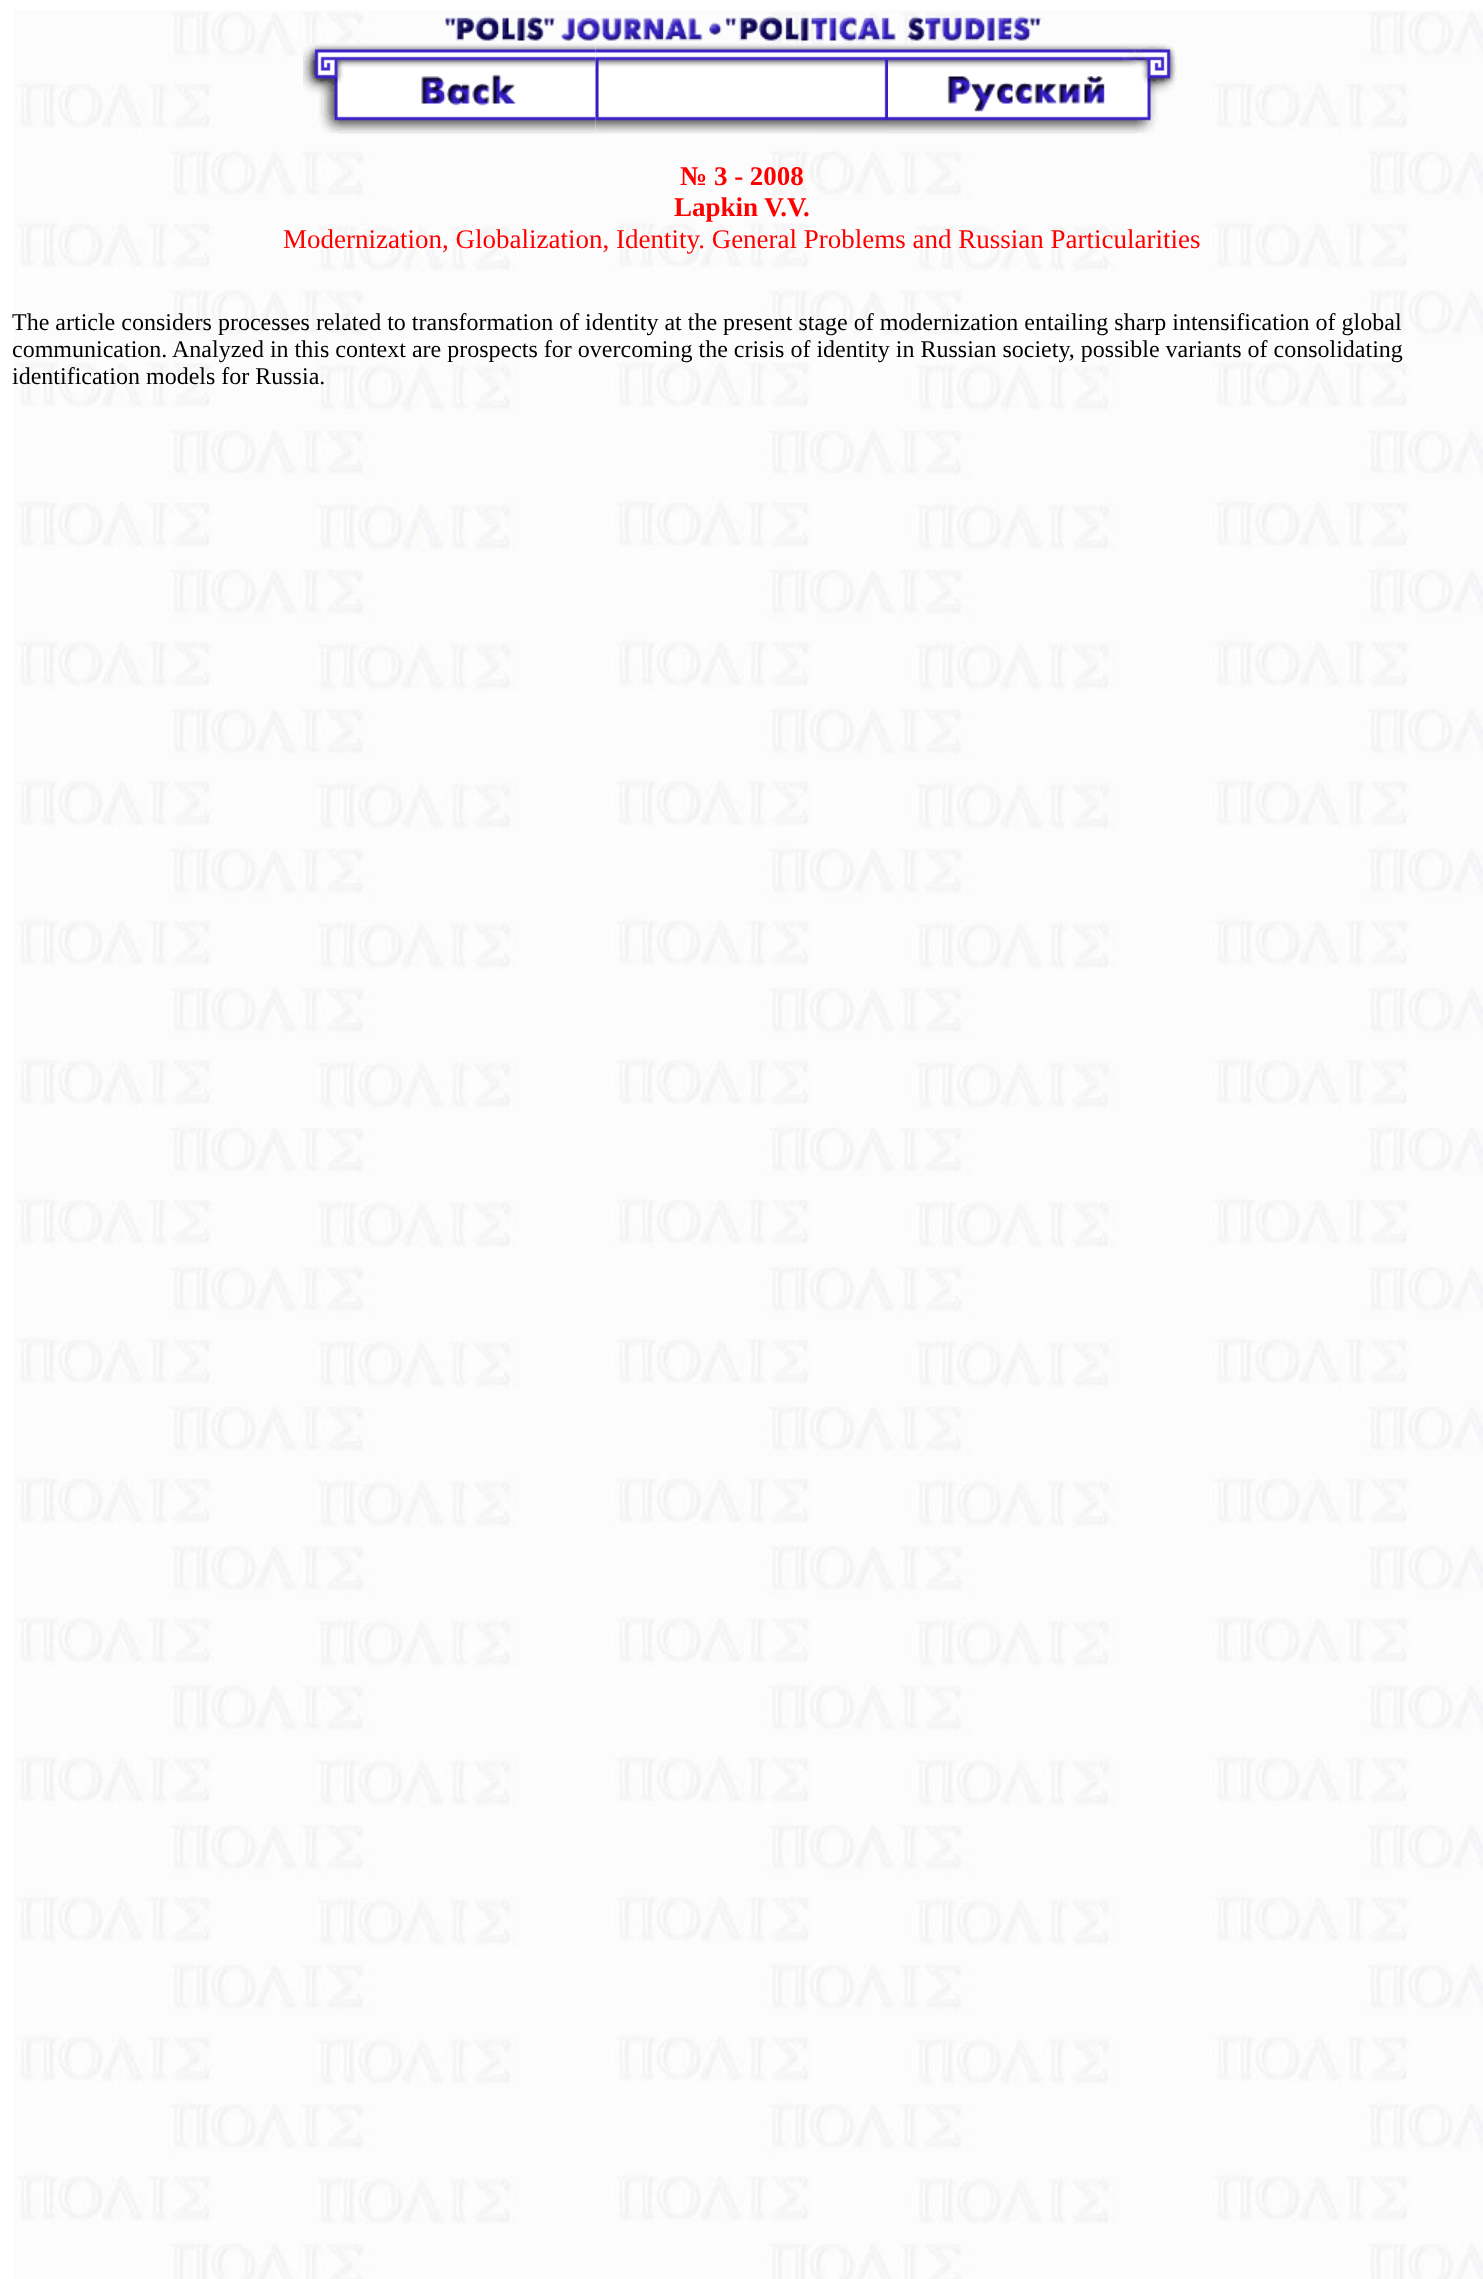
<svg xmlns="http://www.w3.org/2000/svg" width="1483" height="2279">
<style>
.a{font:bold 27px Liberation Serif;fill:#f00}
.b{font:27px Liberation Serif;fill:#f00}
.c{font:24px Liberation Serif;fill:#000}
</style>
<rect width="100%" height="100%" fill="#fff"/>
<image href="1.png" x="14" y="10" width="1469" height="2269"/>
<image href="2.png" x="445" y="16" width="597" height="25"/>
<image href="3.png" x="303" y="43" width="293" height="91"/>
<image href="4.png" x="595" y="43" width="293" height="91"/>
<image href="5.png" x="888" y="43" width="289" height="91"/>
<text class="a" x="680" y="185">№ 3 - 2008</text>
<text class="a" x="674" y="216">Lapkin V.V.</text>
<text class="b" x="283" y="248">Modernization, Globalization, Identity. General Problems and Russian Particularities</text>
<text class="c" x="12" y="330">The article considers processes related to transformation of identity at the present stage of modernization entailing sharp intensification of global</text>
<text class="c" x="12" y="357">communication. Analyzed in this context are prospects for overcoming the crisis of identity in Russian society, possible variants of consolidating</text>
<text class="c" x="12" y="384">identification models for Russia.</text>
</svg>
